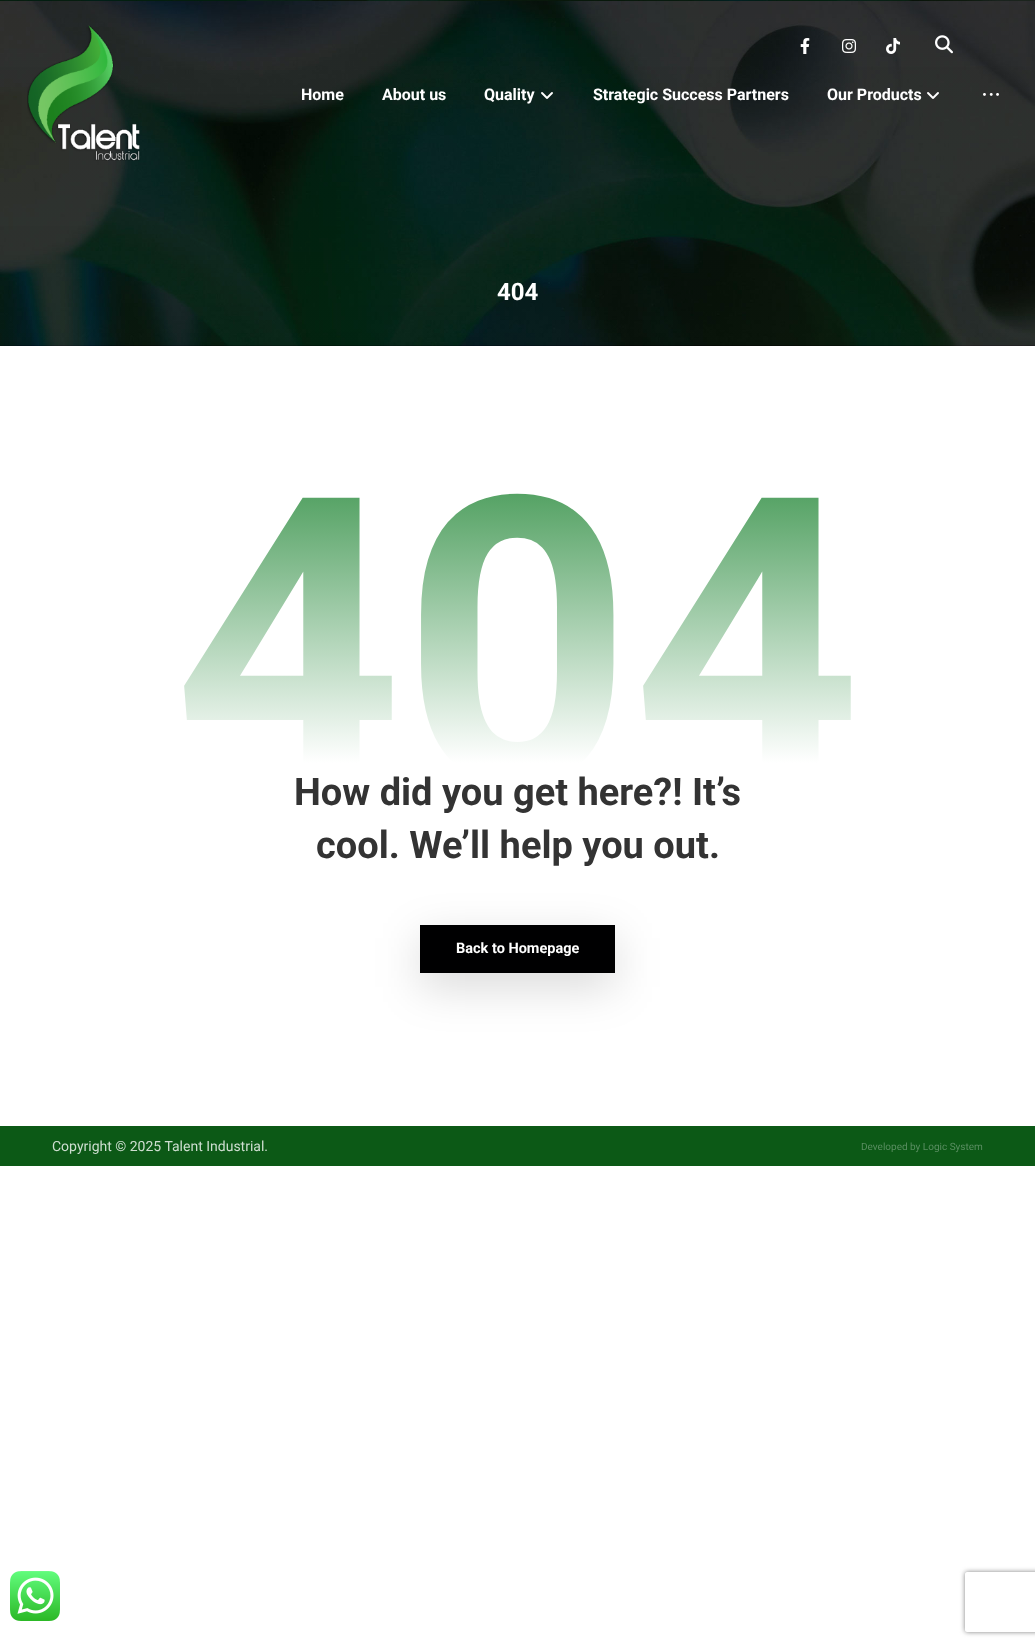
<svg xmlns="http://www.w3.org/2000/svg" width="1035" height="1646">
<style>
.a{font:bold 16px Roboto;fill:#fff}
.b{font:bold 24px Roboto;fill:#fff}
.c{font:bold 400px Roboto;fill:url(#g1)}
.d{font:bold 38px Roboto;fill:#333}
.e{font:bold 14.5px Roboto;fill:#fff}
.f{font:14px Roboto;fill:#ceded0}
.g{font:10px Roboto;fill:#5a8e61}
</style>
<defs>
<clipPath id="clip1"><path d="M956 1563h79v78h-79zm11 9h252c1 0 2 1 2 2v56c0 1-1 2-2 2h-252c-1 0-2-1-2-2v-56c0-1 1-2 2-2z" clip-rule="evenodd"/></clipPath>
<linearGradient id="g1" gradientUnits="userSpaceOnUse" x1="517" y1="411" x2="517" y2="880"><stop offset="0" stop-color="#218635"/><stop offset="0.75" stop-color="#fff"/></linearGradient>
</defs>
<rect width="100%" height="100%" fill="#fff"/>
<image href="9.png" x="0" y="0" width="1035" height="346"/>
<image href="1.png" x="800" y="38" width="10" height="16"/>
<image href="2.png" x="842" y="39" width="14" height="14"/>
<image href="3.png" x="886" y="38" width="14" height="16"/>
<image href="4.png" x="935" y="35" width="18" height="19"/>
<image href="5.png" x="27" y="25" width="113" height="136"/>
<image href="6.png" x="541" y="92" width="12" height="7"/>
<image href="7.png" x="927" y="92" width="12" height="7"/>
<image href="8.png" x="983" y="93" width="16" height="3"/>
<path fill="#0000011a" d="M0 0h1035v1H0z"/>
<path fill="#0000011a" d="M17 345h1018v1H17z"/>
<path fill="#00000126" filter="blur(22.5px)" d="M420 938h195v49H420z"/>
<path fill="#000001" d="M420 925h195v48H420z"/>
<path fill="#0c5916" d="M0 1126h1035v40H0z"/>
<image href="10.png" x="10" y="1571" width="50" height="50"/>
<g clip-path="url(#clip1)">
<rect fill="#808080" filter="blur(2.5px)" x="965" y="1572" width="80" height="60" rx="2"/>
</g>
<text class="a" x="301" y="100">Home</text>
<text class="a" x="382" y="100">About us</text>
<text class="a" x="484" y="100">Quality</text>
<text class="a" x="593" y="100">Strategic Success Partners</text>
<text class="a" x="827" y="100">Our Products</text>
<text class="b" x="497" y="300">404</text>
<text class="c" x="173" y="782">404</text>
<text class="d" x="294" y="805">How did you get here?! It’s</text>
<text class="d" x="316" y="858">cool. We’ll help you out.</text>
<text class="e" x="456" y="953">Back to Homepage</text>
<text class="f" x="52" y="1151">Copyright © 2025 Talent Industrial.</text>
<text class="g" x="861" y="1150">Developed by Logic System</text>
</svg>
